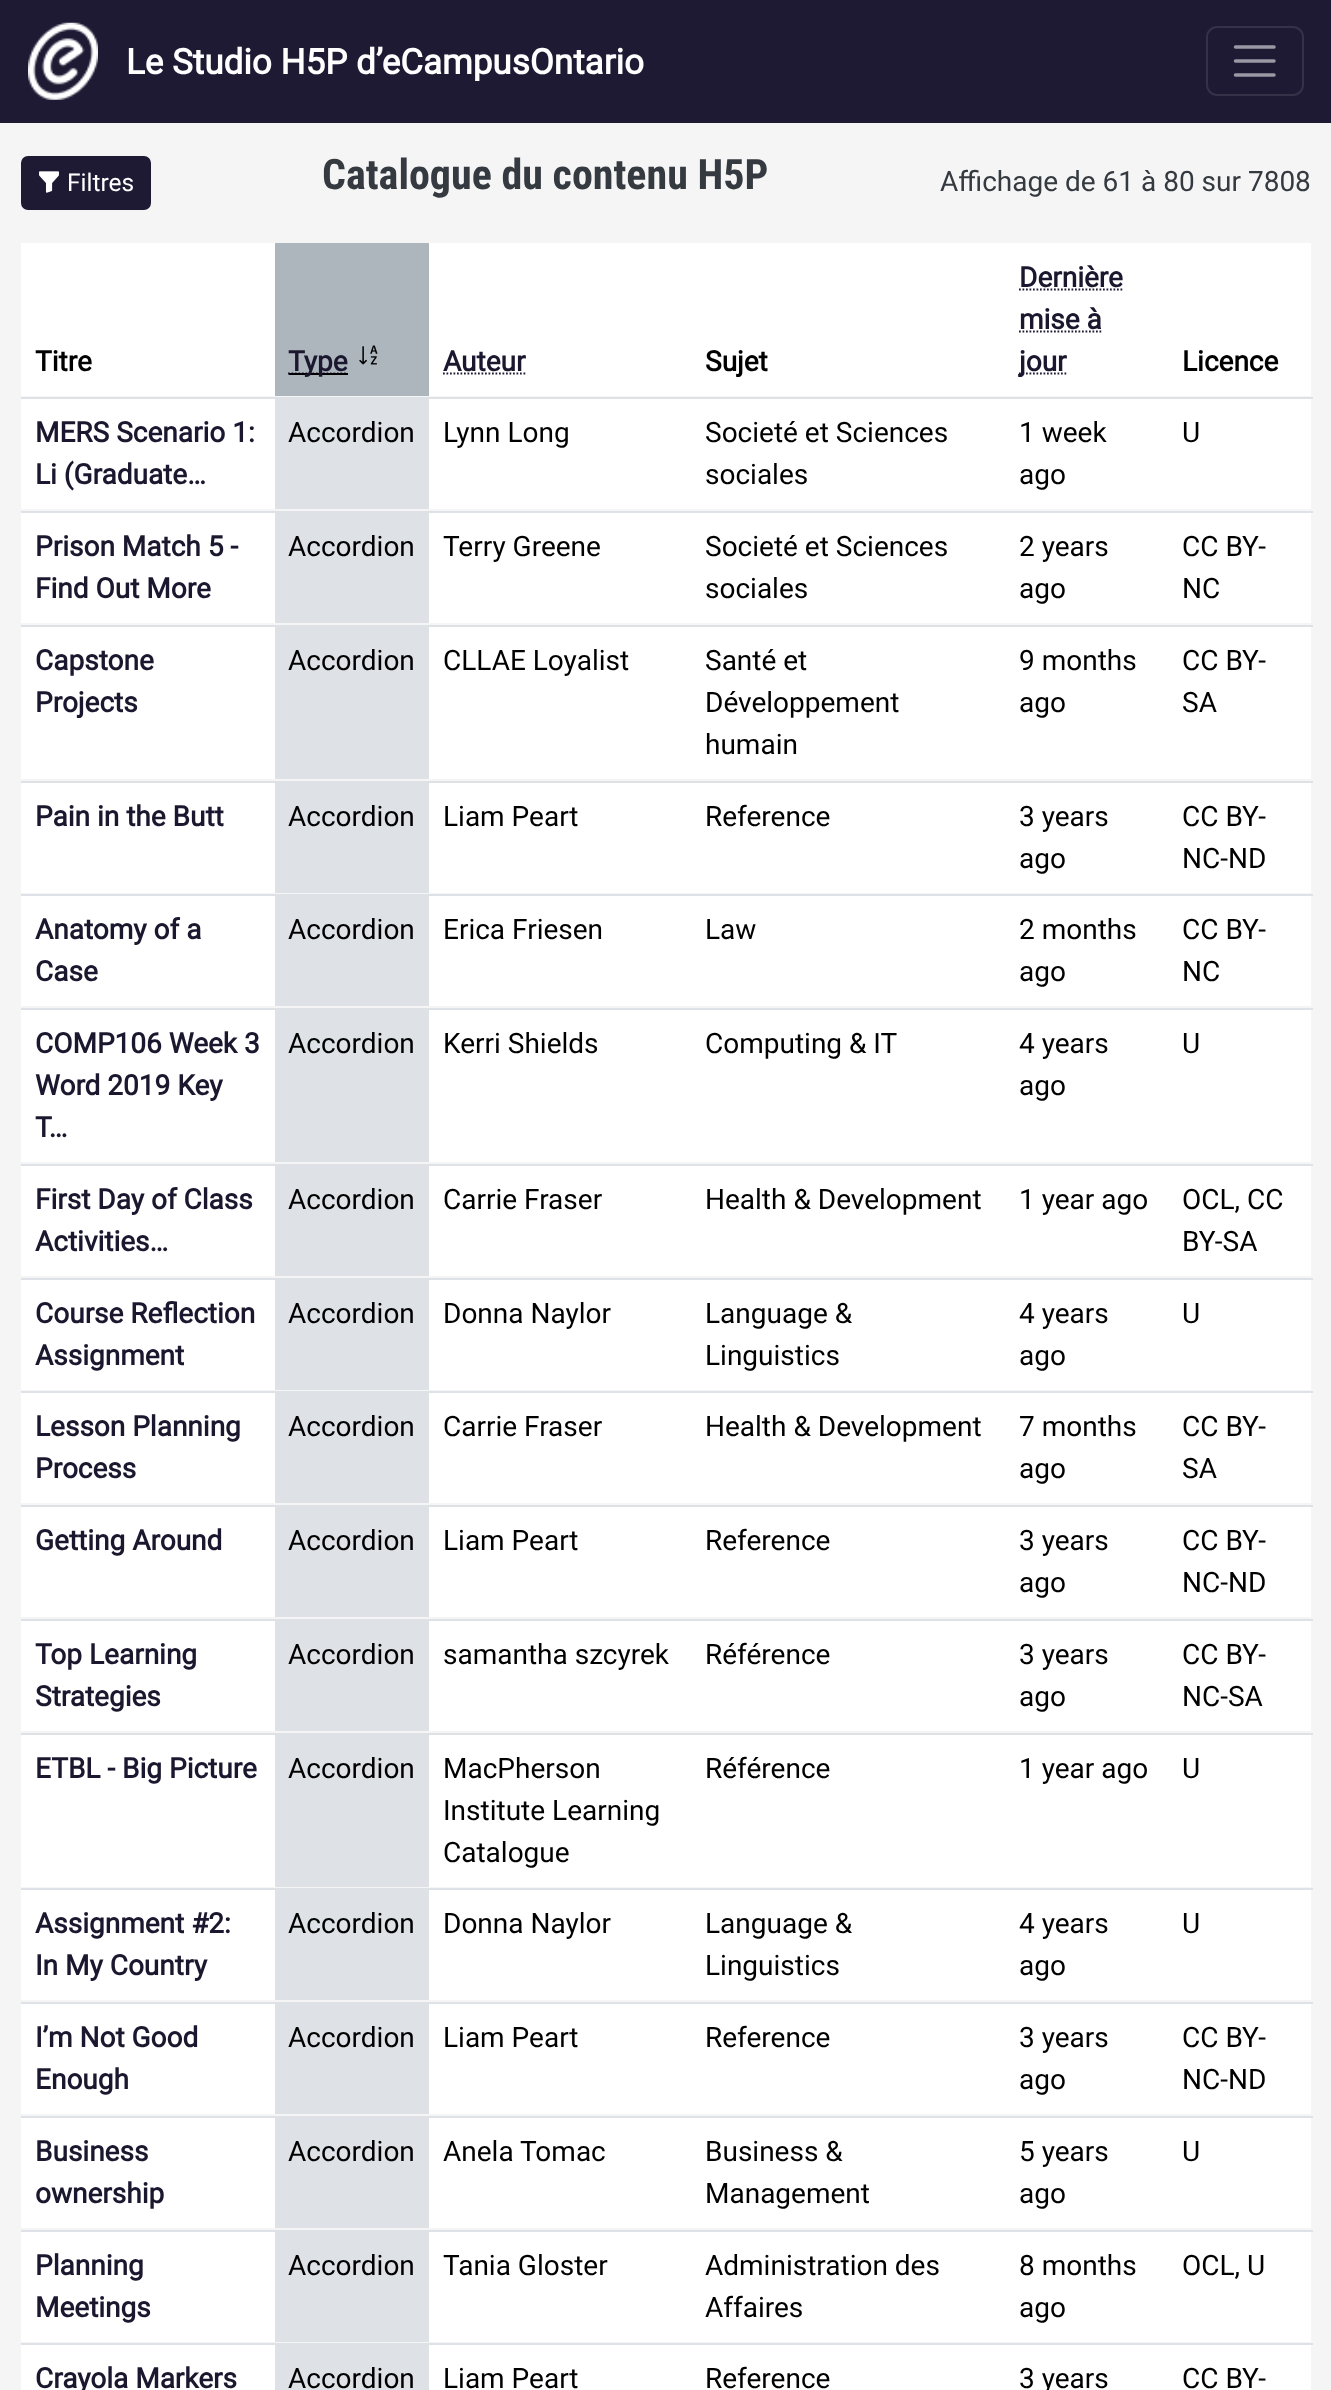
<svg xmlns="http://www.w3.org/2000/svg" width="1331" height="2390">
<style>
.a{font:bold 35px Roboto;fill:#fff}
.b{font:24.5px Roboto;fill:#fff}
.c{font:bold 42px Roboto Condensed;fill:#343a40}
.d{font:28px Roboto;fill:#343a40}
.e{font:bold 28px Roboto;fill:#000}
.f{font:bold 28px Roboto;fill:#1a172e}
.g{font:28px Roboto;fill:#000}
</style>
<rect width="100%" height="100%" fill="#f5f5f5"/>
<path fill="#1e1a34" d="M0 0h1331v123H0z"/>
<image href="1.png" x="28" y="22" width="70" height="78"/>
<rect fill="none" stroke="#353148" stroke-width="2" x="1207" y="27" width="96" height="68" rx="10"/>
<path fill="none" stroke="#9a98a4" stroke-width="3.5" stroke-linecap="round" d="M1235.5 47h38.5m-38.5 14h38.5m-38.5 14h38.5"/>
<rect fill="#1e1a34" stroke="#1e1a34" stroke-width="2" x="22" y="157" width="128" height="52" rx="6"/>
<image href="2.png" x="39" y="171" width="20" height="22"/>
<path fill="#fff" d="M21 243h254v153H21z"/>
<path fill="#adb5bd" d="M275 243h154v153H275z"/>
<path fill="none" stroke="#1e1a34" stroke-width="1.8" stroke-dasharray="1.75 1.75" d="M288 373.5h59.5"/>
<path fill="#000" d="M289 373h59v2H289z"/>
<image href="3.png" x="359" y="345" width="19" height="20"/>
<path fill="#fff" d="M429 243h882v153H429z"/>
<path fill="none" stroke="#1e1a34" stroke-width="1.8" stroke-dasharray="1.75 1.75" d="M443 373.5h82.5"/>
<path fill="none" stroke="#1e1a34" stroke-width="1.8" stroke-dasharray="1.75 1.75" d="M1019 289.5h103.5"/>
<path fill="none" stroke="#1e1a34" stroke-width="1.8" stroke-dasharray="1.75 1.75" d="M1019 331.5h82.5"/>
<path fill="none" stroke="#1e1a34" stroke-width="1.8" stroke-dasharray="1.75 1.75" d="M1019 373.5h47.5"/>
<path fill="#dee2e6" d="M21 397h1292v2H21z"/>
<path fill="#fff" d="M21 399h254v110H21z"/>
<path fill="#dee2e6" d="M275 399h154v110H275z"/>
<path fill="#fff" d="M429 399h882v110H429z"/>
<path fill="#dee2e6" d="M21 511h1292v2H21z"/>
<path fill="#fff" d="M21 513h254v110H21z"/>
<path fill="#dee2e6" d="M275 513h154v110H275z"/>
<path fill="#fff" d="M429 513h882v110H429z"/>
<path fill="#dee2e6" d="M21 625h1292v2H21z"/>
<path fill="#fff" d="M21 627h254v152H21z"/>
<path fill="#dee2e6" d="M275 627h154v152H275z"/>
<path fill="#fff" d="M429 627h882v152H429z"/>
<path fill="#dee2e6" d="M21 781h1292v2H21z"/>
<path fill="#fff" d="M21 783h254v110H21z"/>
<path fill="#dee2e6" d="M275 783h154v110H275z"/>
<path fill="#fff" d="M429 783h882v110H429z"/>
<path fill="#dee2e6" d="M21 894h1292v2H21z"/>
<path fill="#fff" d="M21 896h254v110H21z"/>
<path fill="#dee2e6" d="M275 896h154v110H275z"/>
<path fill="#fff" d="M429 896h882v110H429z"/>
<path fill="#dee2e6" d="M21 1008h1292v2H21z"/>
<path fill="#fff" d="M21 1010h254v152H21z"/>
<path fill="#dee2e6" d="M275 1010h154v152H275z"/>
<path fill="#fff" d="M429 1010h882v152H429z"/>
<path fill="#dee2e6" d="M21 1164h1292v2H21z"/>
<path fill="#fff" d="M21 1166h254v110H21z"/>
<path fill="#dee2e6" d="M275 1166h154v110H275z"/>
<path fill="#fff" d="M429 1166h882v110H429z"/>
<path fill="#dee2e6" d="M21 1278h1292v2H21z"/>
<path fill="#fff" d="M21 1280h254v110H21z"/>
<path fill="#dee2e6" d="M275 1280h154v110H275z"/>
<path fill="#fff" d="M429 1280h882v110H429z"/>
<path fill="#dee2e6" d="M21 1391h1292v2H21z"/>
<path fill="#fff" d="M21 1393h254v110H21z"/>
<path fill="#dee2e6" d="M275 1393h154v110H275z"/>
<path fill="#fff" d="M429 1393h882v110H429z"/>
<path fill="#dee2e6" d="M21 1505h1292v2H21z"/>
<path fill="#fff" d="M21 1507h254v110H21z"/>
<path fill="#dee2e6" d="M275 1507h154v110H275z"/>
<path fill="#fff" d="M429 1507h882v110H429z"/>
<path fill="#dee2e6" d="M21 1619h1292v2H21z"/>
<path fill="#fff" d="M21 1621h254v110H21z"/>
<path fill="#dee2e6" d="M275 1621h154v110H275z"/>
<path fill="#fff" d="M429 1621h882v110H429z"/>
<path fill="#dee2e6" d="M21 1733h1292v2H21z"/>
<path fill="#fff" d="M21 1735h254v152H21z"/>
<path fill="#dee2e6" d="M275 1735h154v152H275z"/>
<path fill="#fff" d="M429 1735h882v152H429z"/>
<path fill="#dee2e6" d="M21 1888h1292v2H21z"/>
<path fill="#fff" d="M21 1890h254v110H21z"/>
<path fill="#dee2e6" d="M275 1890h154v110H275z"/>
<path fill="#fff" d="M429 1890h882v110H429z"/>
<path fill="#dee2e6" d="M21 2002h1292v2H21z"/>
<path fill="#fff" d="M21 2004h254v110H21z"/>
<path fill="#dee2e6" d="M275 2004h154v110H275z"/>
<path fill="#fff" d="M429 2004h882v110H429z"/>
<path fill="#dee2e6" d="M21 2116h1292v2H21z"/>
<path fill="#fff" d="M21 2118h254v110H21z"/>
<path fill="#dee2e6" d="M275 2118h154v110H275z"/>
<path fill="#fff" d="M429 2118h882v110H429z"/>
<path fill="#dee2e6" d="M21 2230h1292v2H21z"/>
<path fill="#fff" d="M21 2232h254v110H21z"/>
<path fill="#dee2e6" d="M275 2232h154v110H275z"/>
<path fill="#fff" d="M429 2232h882v110H429z"/>
<path fill="#dee2e6" d="M21 2343h1292v2H21z"/>
<path fill="#fff" d="M21 2345h254v45H21z"/>
<path fill="#dee2e6" d="M275 2345h154v45H275z"/>
<path fill="#fff" d="M429 2345h882v45H429z"/>
<text class="a" x="126" y="74">Le Studio H5P d’eCampusOntario</text>
<text class="b" x="67" y="191">Filtres</text>
<text class="c" x="322" y="189">Catalogue du contenu H5P</text>
<text class="d" x="940" y="191">Affichage de 61 à 80 sur 7808</text>
<text class="e" x="35" y="371">Titre</text>
<text class="f" x="288" y="371">Type</text>
<text class="f" x="443" y="371">Auteur</text>
<text class="e" x="705" y="371">Sujet</text>
<text class="f" x="1019" y="287">Dernière</text>
<text class="f" x="1019" y="329">mise à</text>
<text class="f" x="1019" y="371">jour</text>
<text class="e" x="1182" y="371">Licence</text>
<text class="f" x="35" y="442">MERS Scenario 1:</text>
<text class="f" x="35" y="484">Li (Graduate…</text>
<text class="g" x="288" y="442">Accordion</text>
<text class="g" x="443" y="442">Lynn Long</text>
<text class="g" x="705" y="442">Societé et Sciences</text>
<text class="g" x="705" y="484">sociales</text>
<text class="g" x="1019" y="442">1 week</text>
<text class="g" x="1019" y="484">ago</text>
<text class="g" x="1182" y="442">U</text>
<text class="f" x="35" y="556">Prison Match 5 -</text>
<text class="f" x="35" y="598">Find Out More</text>
<text class="g" x="288" y="556">Accordion</text>
<text class="g" x="443" y="556">Terry Greene</text>
<text class="g" x="705" y="556">Societé et Sciences</text>
<text class="g" x="705" y="598">sociales</text>
<text class="g" x="1019" y="556">2 years</text>
<text class="g" x="1019" y="598">ago</text>
<text class="g" x="1182" y="556">CC BY-</text>
<text class="g" x="1182" y="598">NC</text>
<text class="f" x="35" y="670">Capstone</text>
<text class="f" x="35" y="712">Projects</text>
<text class="g" x="288" y="670">Accordion</text>
<text class="g" x="443" y="670">CLLAE Loyalist</text>
<text class="g" x="705" y="670">Santé et</text>
<text class="g" x="705" y="712">Développement</text>
<text class="g" x="705" y="754">humain</text>
<text class="g" x="1019" y="670">9 months</text>
<text class="g" x="1019" y="712">ago</text>
<text class="g" x="1182" y="670">CC BY-</text>
<text class="g" x="1182" y="712">SA</text>
<text class="f" x="35" y="826">Pain in the Butt</text>
<text class="g" x="288" y="826">Accordion</text>
<text class="g" x="443" y="826">Liam Peart</text>
<text class="g" x="705" y="826">Reference</text>
<text class="g" x="1019" y="826">3 years</text>
<text class="g" x="1019" y="868">ago</text>
<text class="g" x="1182" y="826">CC BY-</text>
<text class="g" x="1182" y="868">NC-ND</text>
<text class="f" x="35" y="939">Anatomy of a</text>
<text class="f" x="35" y="981">Case</text>
<text class="g" x="288" y="939">Accordion</text>
<text class="g" x="443" y="939">Erica Friesen</text>
<text class="g" x="705" y="939">Law</text>
<text class="g" x="1019" y="939">2 months</text>
<text class="g" x="1019" y="981">ago</text>
<text class="g" x="1182" y="939">CC BY-</text>
<text class="g" x="1182" y="981">NC</text>
<text class="f" x="35" y="1053">COMP106 Week 3</text>
<text class="f" x="35" y="1095">Word 2019 Key</text>
<text class="f" x="35" y="1137">T…</text>
<text class="g" x="288" y="1053">Accordion</text>
<text class="g" x="443" y="1053">Kerri Shields</text>
<text class="g" x="705" y="1053">Computing &amp; IT</text>
<text class="g" x="1019" y="1053">4 years</text>
<text class="g" x="1019" y="1095">ago</text>
<text class="g" x="1182" y="1053">U</text>
<text class="f" x="35" y="1209">First Day of Class</text>
<text class="f" x="35" y="1251">Activities…</text>
<text class="g" x="288" y="1209">Accordion</text>
<text class="g" x="443" y="1209">Carrie Fraser</text>
<text class="g" x="705" y="1209">Health &amp; Development</text>
<text class="g" x="1019" y="1209">1 year ago</text>
<text class="g" x="1182" y="1209">OCL, CC</text>
<text class="g" x="1182" y="1251">BY-SA</text>
<text class="f" x="35" y="1323">Course Reflection</text>
<text class="f" x="35" y="1365">Assignment</text>
<text class="g" x="288" y="1323">Accordion</text>
<text class="g" x="443" y="1323">Donna Naylor</text>
<text class="g" x="705" y="1323">Language &amp;</text>
<text class="g" x="705" y="1365">Linguistics</text>
<text class="g" x="1019" y="1323">4 years</text>
<text class="g" x="1019" y="1365">ago</text>
<text class="g" x="1182" y="1323">U</text>
<text class="f" x="35" y="1436">Lesson Planning</text>
<text class="f" x="35" y="1478">Process</text>
<text class="g" x="288" y="1436">Accordion</text>
<text class="g" x="443" y="1436">Carrie Fraser</text>
<text class="g" x="705" y="1436">Health &amp; Development</text>
<text class="g" x="1019" y="1436">7 months</text>
<text class="g" x="1019" y="1478">ago</text>
<text class="g" x="1182" y="1436">CC BY-</text>
<text class="g" x="1182" y="1478">SA</text>
<text class="f" x="35" y="1550">Getting Around</text>
<text class="g" x="288" y="1550">Accordion</text>
<text class="g" x="443" y="1550">Liam Peart</text>
<text class="g" x="705" y="1550">Reference</text>
<text class="g" x="1019" y="1550">3 years</text>
<text class="g" x="1019" y="1592">ago</text>
<text class="g" x="1182" y="1550">CC BY-</text>
<text class="g" x="1182" y="1592">NC-ND</text>
<text class="f" x="35" y="1664">Top Learning</text>
<text class="f" x="35" y="1706">Strategies</text>
<text class="g" x="288" y="1664">Accordion</text>
<text class="g" x="443" y="1664">samantha szcyrek</text>
<text class="g" x="705" y="1664">Référence</text>
<text class="g" x="1019" y="1664">3 years</text>
<text class="g" x="1019" y="1706">ago</text>
<text class="g" x="1182" y="1664">CC BY-</text>
<text class="g" x="1182" y="1706">NC-SA</text>
<text class="f" x="35" y="1778">ETBL - Big Picture</text>
<text class="g" x="288" y="1778">Accordion</text>
<text class="g" x="443" y="1778">MacPherson</text>
<text class="g" x="443" y="1820">Institute Learning</text>
<text class="g" x="443" y="1862">Catalogue</text>
<text class="g" x="705" y="1778">Référence</text>
<text class="g" x="1019" y="1778">1 year ago</text>
<text class="g" x="1182" y="1778">U</text>
<text class="f" x="35" y="1933">Assignment #2:</text>
<text class="f" x="35" y="1975">In My Country</text>
<text class="g" x="288" y="1933">Accordion</text>
<text class="g" x="443" y="1933">Donna Naylor</text>
<text class="g" x="705" y="1933">Language &amp;</text>
<text class="g" x="705" y="1975">Linguistics</text>
<text class="g" x="1019" y="1933">4 years</text>
<text class="g" x="1019" y="1975">ago</text>
<text class="g" x="1182" y="1933">U</text>
<text class="f" x="35" y="2047">I’m Not Good</text>
<text class="f" x="35" y="2089">Enough</text>
<text class="g" x="288" y="2047">Accordion</text>
<text class="g" x="443" y="2047">Liam Peart</text>
<text class="g" x="705" y="2047">Reference</text>
<text class="g" x="1019" y="2047">3 years</text>
<text class="g" x="1019" y="2089">ago</text>
<text class="g" x="1182" y="2047">CC BY-</text>
<text class="g" x="1182" y="2089">NC-ND</text>
<text class="f" x="35" y="2161">Business</text>
<text class="f" x="35" y="2203">ownership</text>
<text class="g" x="288" y="2161">Accordion</text>
<text class="g" x="443" y="2161">Anela Tomac</text>
<text class="g" x="705" y="2161">Business &amp;</text>
<text class="g" x="705" y="2203">Management</text>
<text class="g" x="1019" y="2161">5 years</text>
<text class="g" x="1019" y="2203">ago</text>
<text class="g" x="1182" y="2161">U</text>
<text class="f" x="35" y="2275">Planning</text>
<text class="f" x="35" y="2317">Meetings</text>
<text class="g" x="288" y="2275">Accordion</text>
<text class="g" x="443" y="2275">Tania Gloster</text>
<text class="g" x="705" y="2275">Administration des</text>
<text class="g" x="705" y="2317">Affaires</text>
<text class="g" x="1019" y="2275">8 months</text>
<text class="g" x="1019" y="2317">ago</text>
<text class="g" x="1182" y="2275">OCL, U</text>
<text class="f" x="35" y="2388">Crayola Markers</text>
<text class="g" x="288" y="2388">Accordion</text>
<text class="g" x="443" y="2388">Liam Peart</text>
<text class="g" x="705" y="2388">Reference</text>
<text class="g" x="1019" y="2388">3 years</text>
<text class="g" x="1182" y="2388">CC BY-</text>
</svg>
